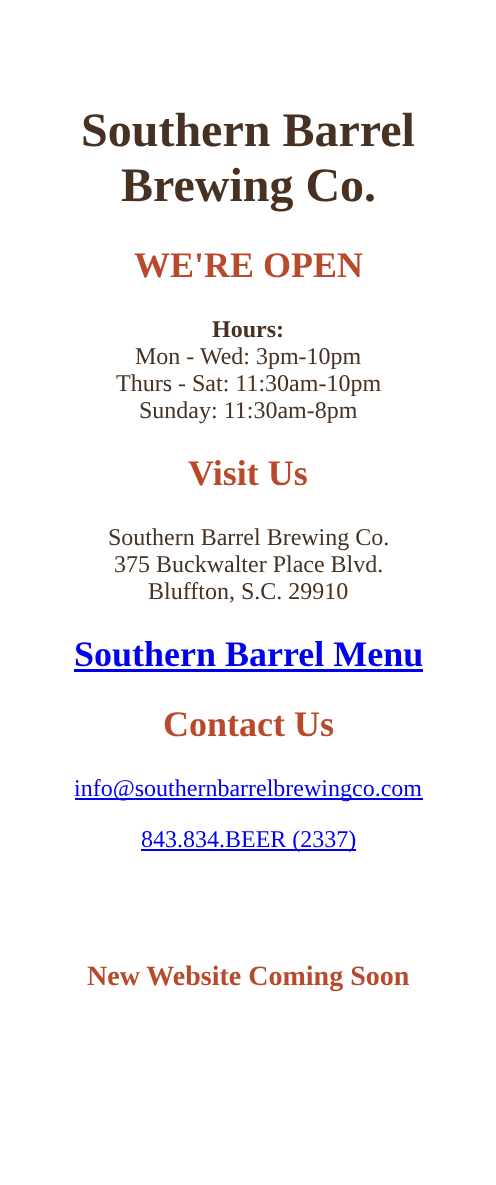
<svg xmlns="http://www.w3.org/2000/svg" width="496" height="1185">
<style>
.a{font:bold 48px Liberation Serif;fill:#463122}
.b{font:bold 36px Liberation Serif;fill:#b84a2b}
.c{font:bold 24px Liberation Serif;fill:#463122}
.d{font:24px Liberation Serif;fill:#463122}
.e{font:bold 36px Liberation Serif;fill:#00e}
.f{font:24px Liberation Serif;fill:#00e}
.g{font:bold 28px Liberation Serif;fill:#b84a2b}
</style>
<rect width="100%" height="100%" fill="#fff"/>
<path fill="#00e" d="M74 669h349v3H74z"/>
<path fill="#00e" d="M75 798h348v2H75z"/>
<path fill="#00e" d="M141 849h215v2H141z"/>
<text class="a" x="81" y="146">Southern Barrel</text>
<text class="a" x="121" y="201">Brewing Co.</text>
<text class="b" x="134" y="277">WE'RE OPEN</text>
<text class="c" x="212" y="337">Hours:</text>
<text class="d" x="135" y="364">Mon - Wed: 3pm-10pm</text>
<text class="d" x="116" y="391">Thurs - Sat: 11:30am-10pm</text>
<text class="d" x="139" y="418">Sunday: 11:30am-8pm</text>
<text class="b" x="188" y="485">Visit Us</text>
<text class="d" x="108" y="545">Southern Barrel Brewing Co.</text>
<text class="d" x="114" y="572">375 Buckwalter Place Blvd.</text>
<text class="d" x="148" y="599">Bluffton, S.C. 29910</text>
<text class="e" x="74" y="666">Southern Barrel Menu</text>
<text class="b" x="163" y="736">Contact Us</text>
<text class="f" x="74" y="796">info@southernbarrelbrewingco.com</text>
<text class="f" x="141" y="847">843.834.BEER (2337)</text>
<text class="g" x="87" y="985">New Website Coming Soon</text>
</svg>
